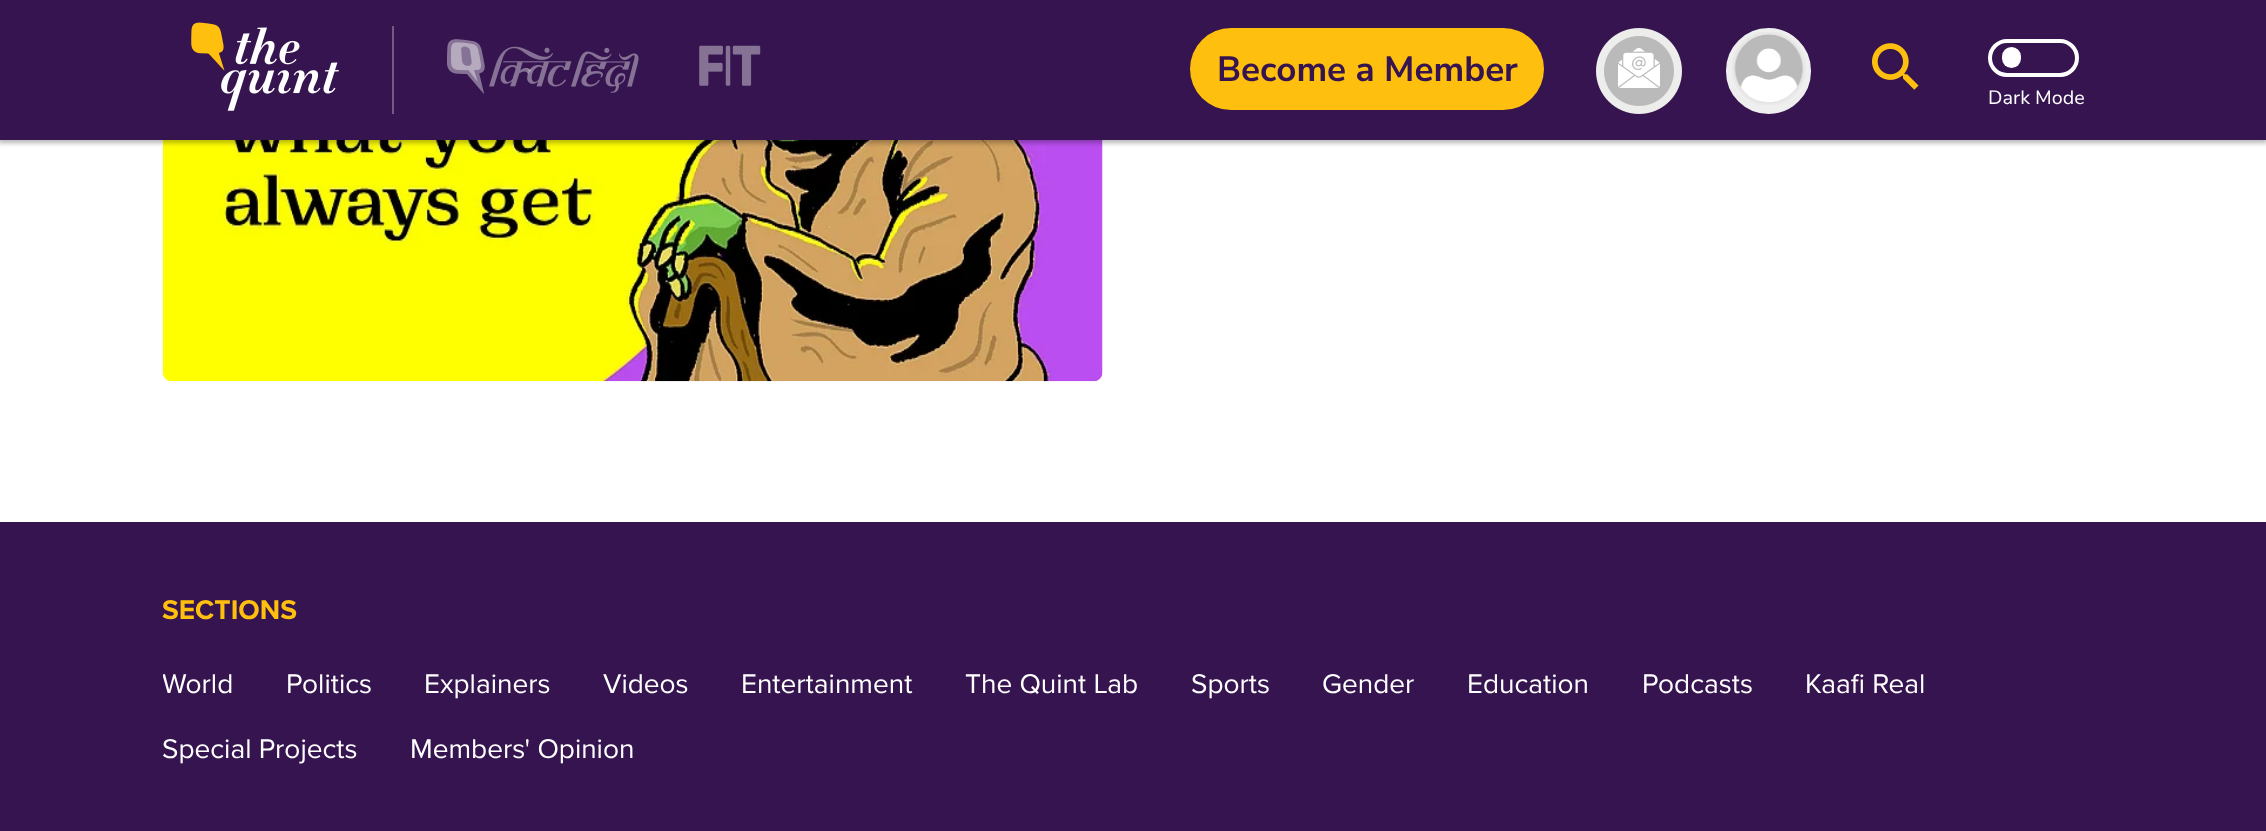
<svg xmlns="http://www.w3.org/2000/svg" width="2266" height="831">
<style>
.a{font:bold 35px Nunito Sans;fill:#35144f}
.b{font:19.25px Nunito Sans;fill:#fff}
.c{font:bold 28px Proxima Nova;fill:#febf0f}
.d{font:28px Proxima Nova;fill:#fff}
</style>
<defs>
<clipPath id="clip1"><path d="M163 665h1942v130H163z"/></clipPath>
</defs>
<rect width="100%" height="100%" fill="#fff"/>
<image href="7.png" x="162" y="140" width="941" height="242"/>
<path fill="#00000026" filter="blur(2px)" d="M0 2h2266v140H0z"/>
<path fill="#00000026" filter="blur(2px)" d="M-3 75h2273v69H-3z"/>
<path fill="#35144f" d="M0 0h2266v140H0z"/>
<image href="1.png" x="191" y="22" width="148" height="89"/>
<path fill="#725b84" d="M392 26h2v88H392z"/>
<image href="2.png" x="447" y="39" width="192" height="56"/>
<image href="3.png" x="699" y="45" width="62" height="41"/>
<rect fill="#febf0f" x="1190" y="28" width="354" height="82" rx="41"/>
<image href="4.png" x="1596" y="28" width="86" height="86"/>
<rect fill="#efefef" stroke="#efefef" stroke-width="2" x="1727" y="29" width="83" height="84" rx="41.5"/>
<image href="5.png" x="1732" y="32" width="74" height="73"/>
<image href="6.png" x="1872" y="43" width="47" height="47"/>
<rect fill="none" stroke="#fff" stroke-width="4" x="1990" y="41" width="87" height="34" rx="17"/>
<rect fill="#fff" x="2002" y="47" width="19" height="21" rx="9.5"/>
<path fill="#35144f" d="M0 522h2266v309H0z"/>
<text class="a" x="1217" y="81">Become a Member</text>
<text class="b" x="1988" y="104">Dark Mode</text>
<text class="c" x="162" y="619">SECTIONS</text>
<g clip-path="url(#clip1)">
<text class="d" x="162" y="693">World</text>
</g>
<text class="d" x="286" y="693">Politics</text>
<text class="d" x="424" y="693">Explainers</text>
<text class="d" x="603" y="693">Videos</text>
<text class="d" x="741" y="693">Entertainment</text>
<text class="d" x="965" y="693">The Quint Lab</text>
<text class="d" x="1191" y="693">Sports</text>
<text class="d" x="1322" y="693">Gender</text>
<text class="d" x="1467" y="693">Education</text>
<text class="d" x="1642" y="693">Podcasts</text>
<text class="d" x="1805" y="693">Kaafi Real</text>
<text class="d" x="162" y="758">Special Projects</text>
<text class="d" x="410" y="758">Members' Opinion</text>
</svg>
